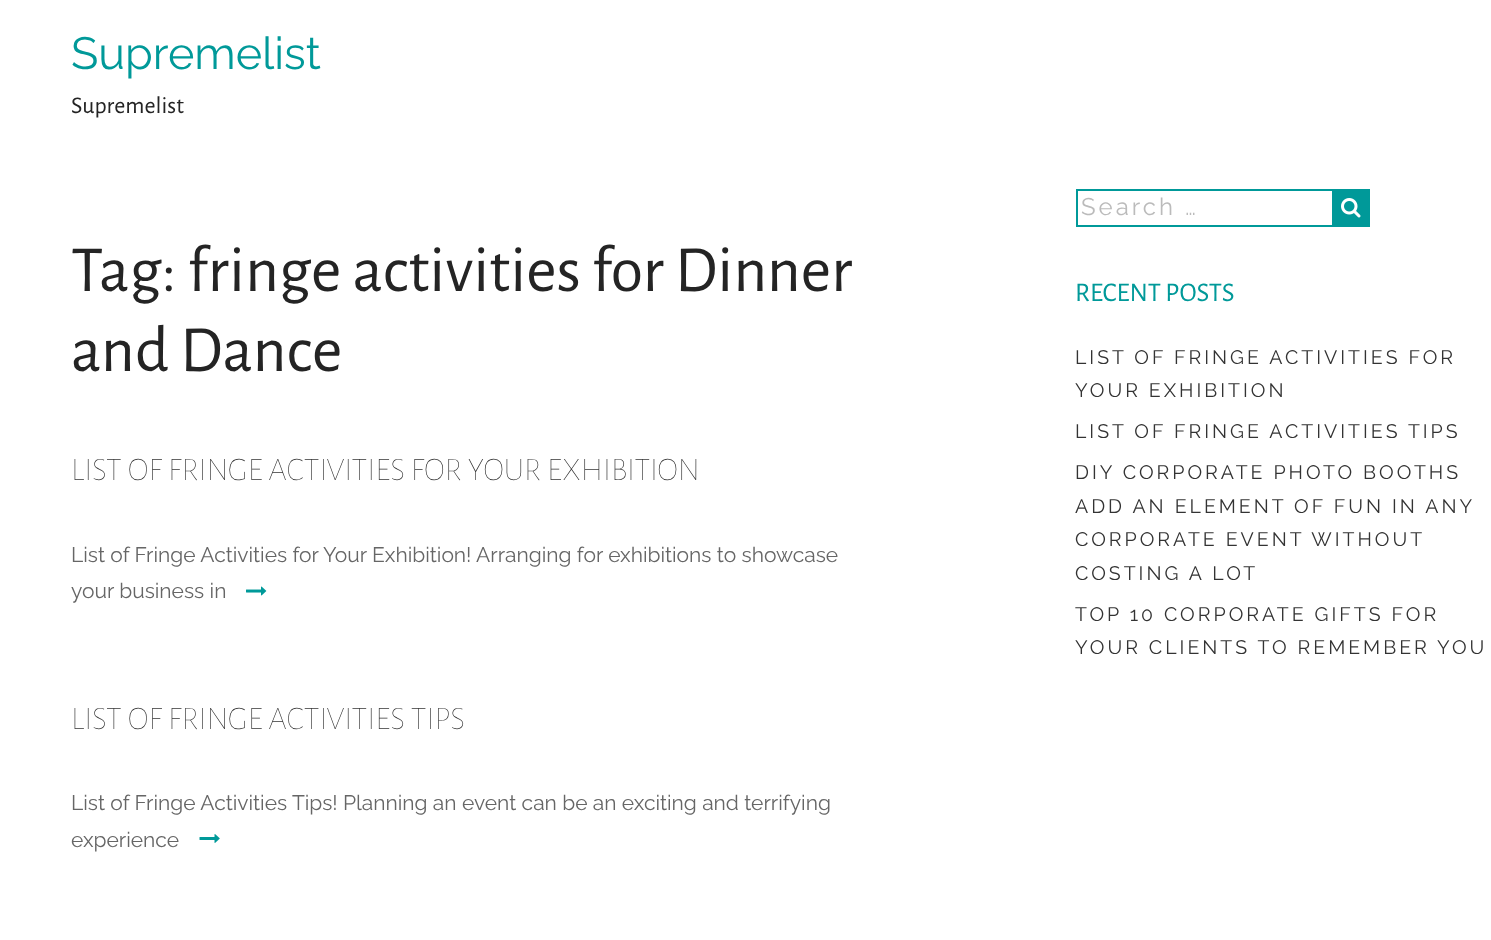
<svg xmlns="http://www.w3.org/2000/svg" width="1491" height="940">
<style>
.a{font:45px Raleway;fill:#099}
.b{font:24px Alegreya Sans;fill:#242424}
.c{font:66px Alegreya Sans;fill:#242424}
.d{font:200 33px Alegreya Sans;fill:#333}
.e{font:21px Raleway;fill:#666}
.f{font:24px Raleway;letter-spacing:3px;fill:#bbb}
.g{font:27px Alegreya Sans;fill:#099}
.h{font:19.5px Raleway;letter-spacing:3px;fill:#333}
</style>
<rect width="100%" height="100%" fill="#fff"/>
<image href="1.png" x="246" y="586" width="21" height="10"/>
<image href="2.png" x="199" y="834" width="21" height="9"/>
<path fill="none" stroke="#099" stroke-width="2" d="M1077 190h259v36H1077z"/>
<path fill="#099" d="M1332 189h38v38H1332z"/>
<image href="3.png" x="1341" y="198" width="20" height="20"/>
<text class="a" x="71" y="69">Supremelist</text>
<text class="b" x="71" y="113">Supremelist</text>
<text class="c" x="71" y="291">Tag: fringe activities for Dinner</text>
<text class="c" x="71" y="371">and Dance</text>
<text class="d" x="71" y="480">LIST OF FRINGE ACTIVITIES FOR YOUR EXHIBITION</text>
<text class="e" x="71" y="562">List of Fringe Activities for Your Exhibition! Arranging for exhibitions to showcase</text>
<text class="e" x="71" y="598">your business in</text>
<text class="d" x="71" y="729">LIST OF FRINGE ACTIVITIES TIPS</text>
<text class="e" x="71" y="810">List of Fringe Activities Tips! Planning an event can be an exciting and terrifying</text>
<text class="e" x="71" y="847">experience</text>
<text class="f" x="1081" y="215">Search …</text>
<text class="g" x="1075" y="301">RECENT POSTS</text>
<text class="h" x="1075" y="364">LIST OF FRINGE ACTIVITIES FOR</text>
<text class="h" x="1075" y="397">YOUR EXHIBITION</text>
<text class="h" x="1075" y="438">LIST OF FRINGE ACTIVITIES TIPS</text>
<text class="h" x="1075" y="479">DIY CORPORATE PHOTO BOOTHS</text>
<text class="h" x="1075" y="513">ADD AN ELEMENT OF FUN IN ANY</text>
<text class="h" x="1075" y="546">CORPORATE EVENT WITHOUT</text>
<text class="h" x="1075" y="580">COSTING A LOT</text>
<text class="h" x="1075" y="621">TOP 10 CORPORATE GIFTS FOR</text>
<text class="h" x="1075" y="654">YOUR CLIENTS TO REMEMBER YOU</text>
</svg>
